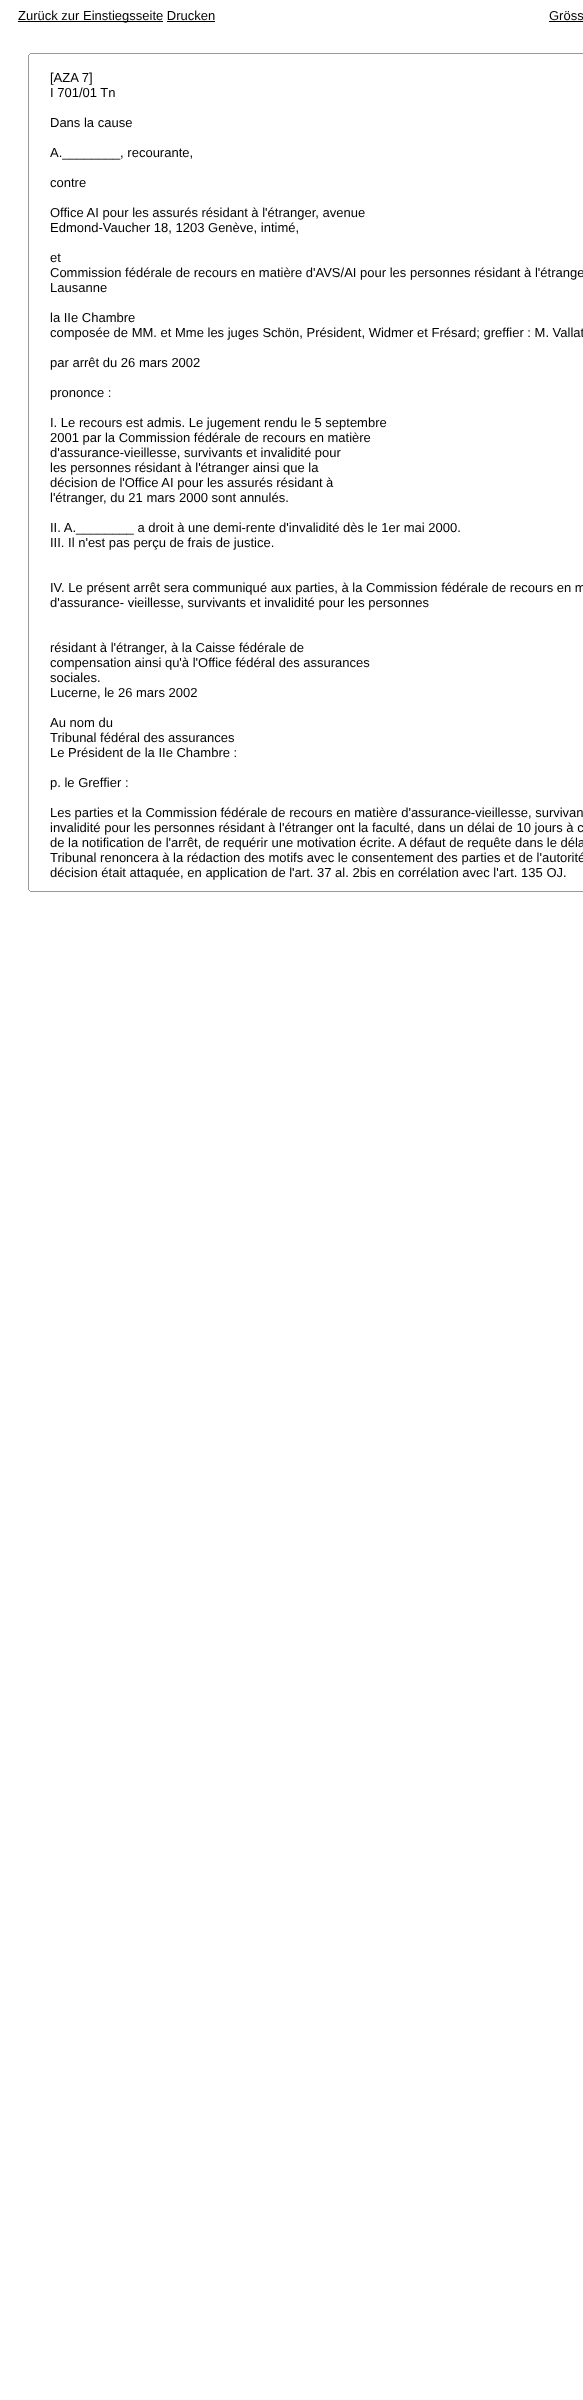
<svg xmlns="http://www.w3.org/2000/svg" width="583" height="2400">
<style>
.a{font:13px Liberation Sans;fill:#000}
</style>
<rect width="100%" height="100%" fill="#fff"/>
<path fill="#000" d="M18 21h145v1H18z"/>
<path fill="#000" d="M167 21h48v1H167z"/>
<path fill="#000" d="M549 21h34v1H549z"/>
<path fill="#999" d="M30 53h553v1H30z"/>
<path fill="#999" d="M29 54h1v1H29z"/>
<path fill="#999" d="M28 55h1v835H28z"/>
<path fill="#999" d="M29 890h1v1H29z"/>
<path fill="#999" d="M30 891h553v1H30z"/>
<text class="a" x="18" y="20">Zurück zur Einstiegsseite Drucken</text>
<text class="a" x="549" y="20">Gröss</text>
<text class="a" x="50" y="82">[AZA 7]</text>
<text class="a" x="50" y="97">I 701/01 Tn</text>
<text class="a" x="50" y="127">Dans la cause</text>
<text class="a" x="50" y="157">A.________, recourante,</text>
<text class="a" x="50" y="187">contre</text>
<text class="a" x="50" y="217">Office AI pour les assurés résidant à l'étranger, avenue</text>
<text class="a" x="50" y="232">Edmond-Vaucher 18, 1203 Genève, intimé,</text>
<text class="a" x="50" y="262">et</text>
<text class="a" x="50" y="277">Commission fédérale de recours en matière d'AVS/AI pour les personnes résidant à l'étrange</text>
<text class="a" x="50" y="292">Lausanne</text>
<text class="a" x="50" y="322">la IIe Chambre</text>
<text class="a" x="50" y="337">composée de MM. et Mme les juges Schön, Président, Widmer et Frésard; greffier : M. Vallat</text>
<text class="a" x="50" y="367">par arrêt du 26 mars 2002</text>
<text class="a" x="50" y="397">prononce :</text>
<text class="a" x="50" y="427">I. Le recours est admis. Le jugement rendu le 5 septembre</text>
<text class="a" x="50" y="442">2001 par la Commission fédérale de recours en matière</text>
<text class="a" x="50" y="457">d'assurance-vieillesse, survivants et invalidité pour</text>
<text class="a" x="50" y="472">les personnes résidant à l'étranger ainsi que la</text>
<text class="a" x="50" y="487">décision de l'Office AI pour les assurés résidant à</text>
<text class="a" x="50" y="502">l'étranger, du 21 mars 2000 sont annulés.</text>
<text class="a" x="50" y="532">II. A.________ a droit à une demi-rente d'invalidité dès le 1er mai 2000.</text>
<text class="a" x="50" y="547">III. Il n'est pas perçu de frais de justice.</text>
<text class="a" x="50" y="592">IV. Le présent arrêt sera communiqué aux parties, à la Commission fédérale de recours en m</text>
<text class="a" x="50" y="607">d'assurance- vieillesse, survivants et invalidité pour les personnes</text>
<text class="a" x="50" y="652">résidant à l'étranger, à la Caisse fédérale de</text>
<text class="a" x="50" y="667">compensation ainsi qu'à l'Office fédéral des assurances</text>
<text class="a" x="50" y="682">sociales.</text>
<text class="a" x="50" y="697">Lucerne, le 26 mars 2002</text>
<text class="a" x="50" y="727">Au nom du</text>
<text class="a" x="50" y="742">Tribunal fédéral des assurances</text>
<text class="a" x="50" y="757">Le Président de la IIe Chambre :</text>
<text class="a" x="50" y="787">p. le Greffier :</text>
<text class="a" x="50" y="817">Les parties et la Commission fédérale de recours en matière d'assurance-vieillesse, survivan</text>
<text class="a" x="50" y="832">invalidité pour les personnes résidant à l'étranger ont la faculté, dans un délai de 10 jours à c</text>
<text class="a" x="50" y="847">de la notification de l'arrêt, de requérir une motivation écrite. A défaut de requête dans le déla</text>
<text class="a" x="50" y="862">Tribunal renoncera à la rédaction des motifs avec le consentement des parties et de l'autorité</text>
<text class="a" x="50" y="877">décision était attaquée, en application de l'art. 37 al. 2bis en corrélation avec l'art. 135 OJ.</text>
</svg>
